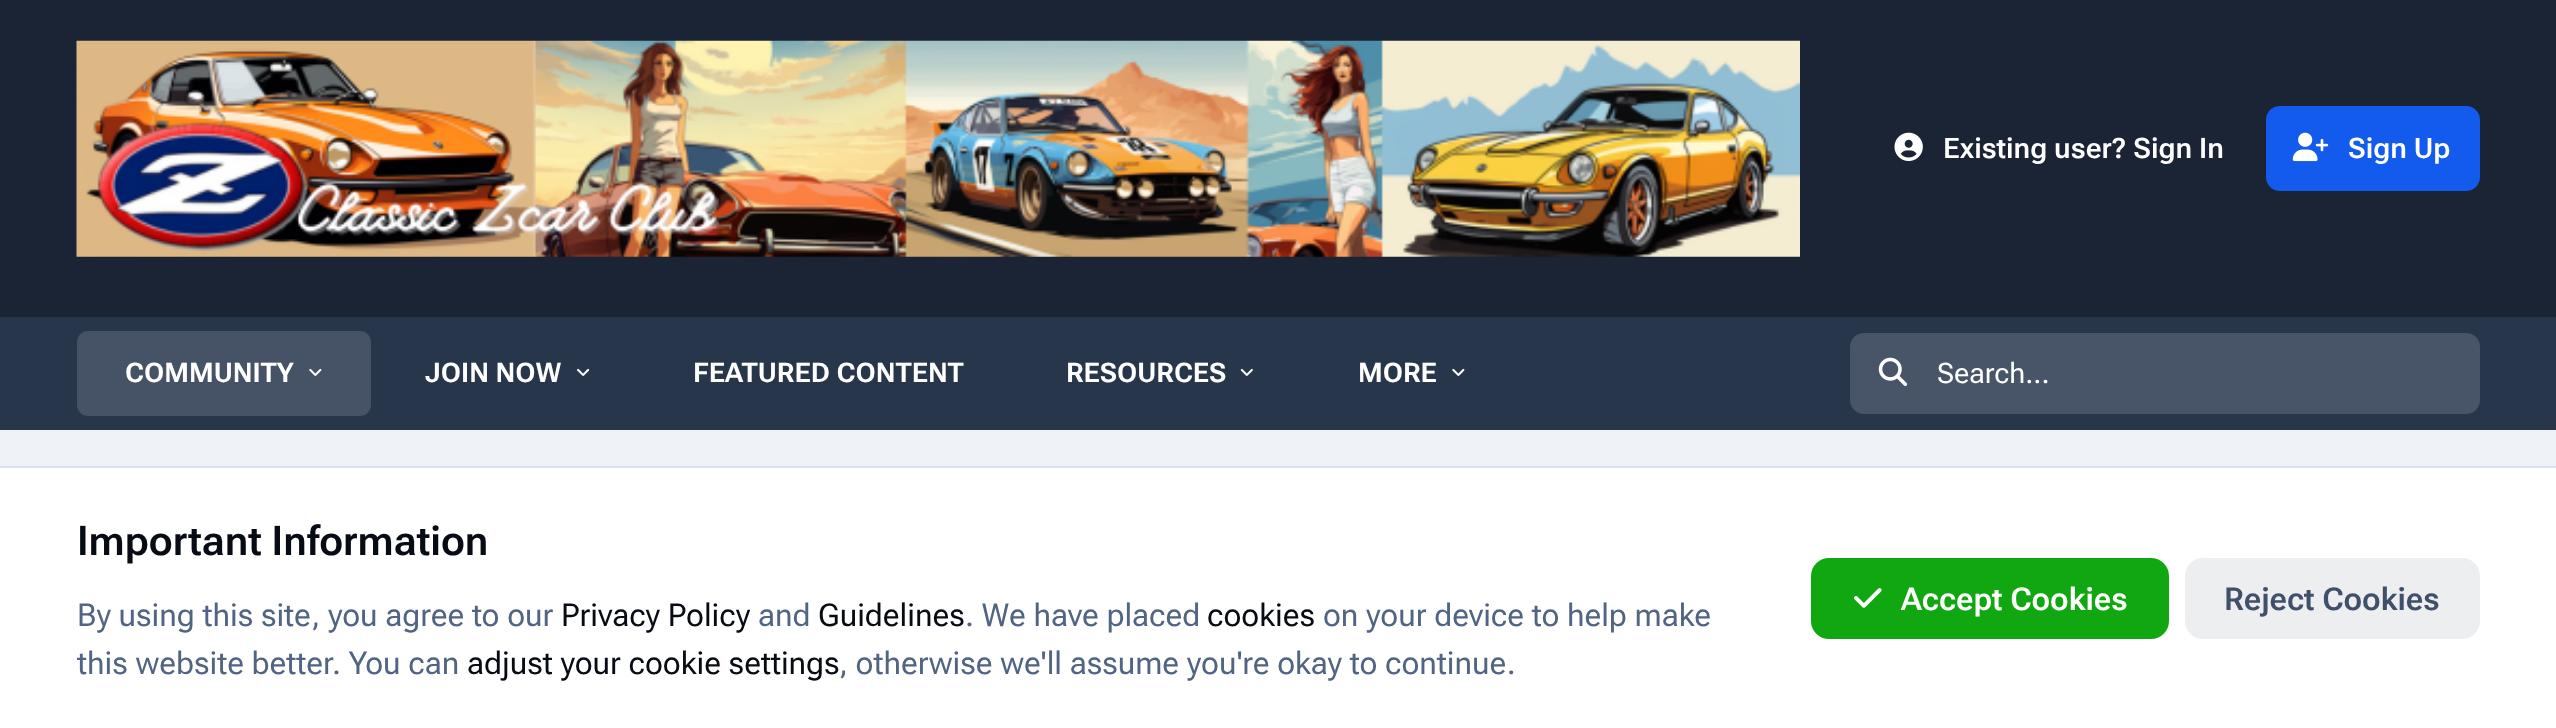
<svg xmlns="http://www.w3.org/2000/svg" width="2556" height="728">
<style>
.a{font:600 28.25px Roboto Flex;fill:#fff}
.b{font:bold 27px Roboto Flex;fill:#fff}
.c{font:28.25px Roboto Flex;fill:#fff}
.d{font:600 41px 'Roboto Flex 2';fill:#060b14}
.e{font:31.5px 'Roboto Flex 2';fill:#516483}
.f{font:31.5px 'Roboto Flex 2';fill:#060b14}
.g{font:600 31.5px 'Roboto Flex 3';fill:#fff}
.h{font:600 31.5px 'Roboto Flex 3';fill:#40506b}
</style>
<rect width="100%" height="100%" fill="#eff2f7"/>
<path fill="#1b2434" d="M0 0h2556v317H0z"/>
<image href="1.png" x="76" y="40" width="1724" height="217"/>
<image href="2.png" x="1894" y="132" width="29" height="29"/>
<rect fill="#135bec" x="2266" y="106" width="214" height="85" rx="14"/>
<image href="3.png" x="2292" y="132" width="37" height="30"/>
<path fill="#28364c" d="M0 317h2556v113H0z"/>
<rect fill="#465265" x="77" y="331" width="294" height="85" rx="11"/>
<image href="4.png" x="309" y="368" width="13" height="8"/>
<image href="5.png" x="577" y="368" width="13" height="8"/>
<image href="6.png" x="1240" y="368" width="13" height="8"/>
<image href="7.png" x="1452" y="368" width="13" height="8"/>
<rect fill="#485467" x="1850" y="333" width="630" height="81" rx="14"/>
<image href="8.png" x="1878" y="357" width="30" height="29"/>
<path fill="#fff" d="M0 468h2556v260H0z"/>
<path fill="#dde2e9" d="M0 466h2556v2H0z"/>
<rect fill="#11a711" x="1811" y="558" width="358" height="81" rx="18"/>
<image href="9.png" x="1854" y="588" width="28" height="20"/>
<rect fill="#eceef0" x="2185" y="558" width="295" height="81" rx="18"/>
<text class="a" x="1943" y="158">Existing user? Sign In</text>
<text class="a" x="2348" y="158">Sign Up</text>
<text class="b" x="125" y="382">COMMUNITY</text>
<text class="b" x="425" y="382">JOIN NOW</text>
<text class="b" x="693" y="382">FEATURED CONTENT</text>
<text class="b" x="1066" y="382">RESOURCES</text>
<text class="b" x="1358" y="382">MORE</text>
<text class="c" x="1937" y="383">Search...</text>
<text class="d" x="77" y="555">Important Information</text>
<text class="e" x="77" y="626">By using this site, you agree to our</text>
<text class="f" x="561" y="626">Privacy Policy</text>
<text class="e" x="758" y="626">and</text>
<text class="f" x="818" y="626">Guidelines</text>
<text class="e" x="965" y="626">. We have placed</text>
<text class="f" x="1207" y="626">cookies</text>
<text class="e" x="1323" y="626">on your device to help make</text>
<text class="e" x="77" y="674">this website better. You can</text>
<text class="f" x="467" y="674">adjust your cookie settings</text>
<text class="e" x="839" y="674">, otherwise we'll assume you're okay to continue.</text>
<text class="g" x="1901" y="610">Accept Cookies</text>
<text class="h" x="2224" y="610">Reject Cookies</text>
</svg>
